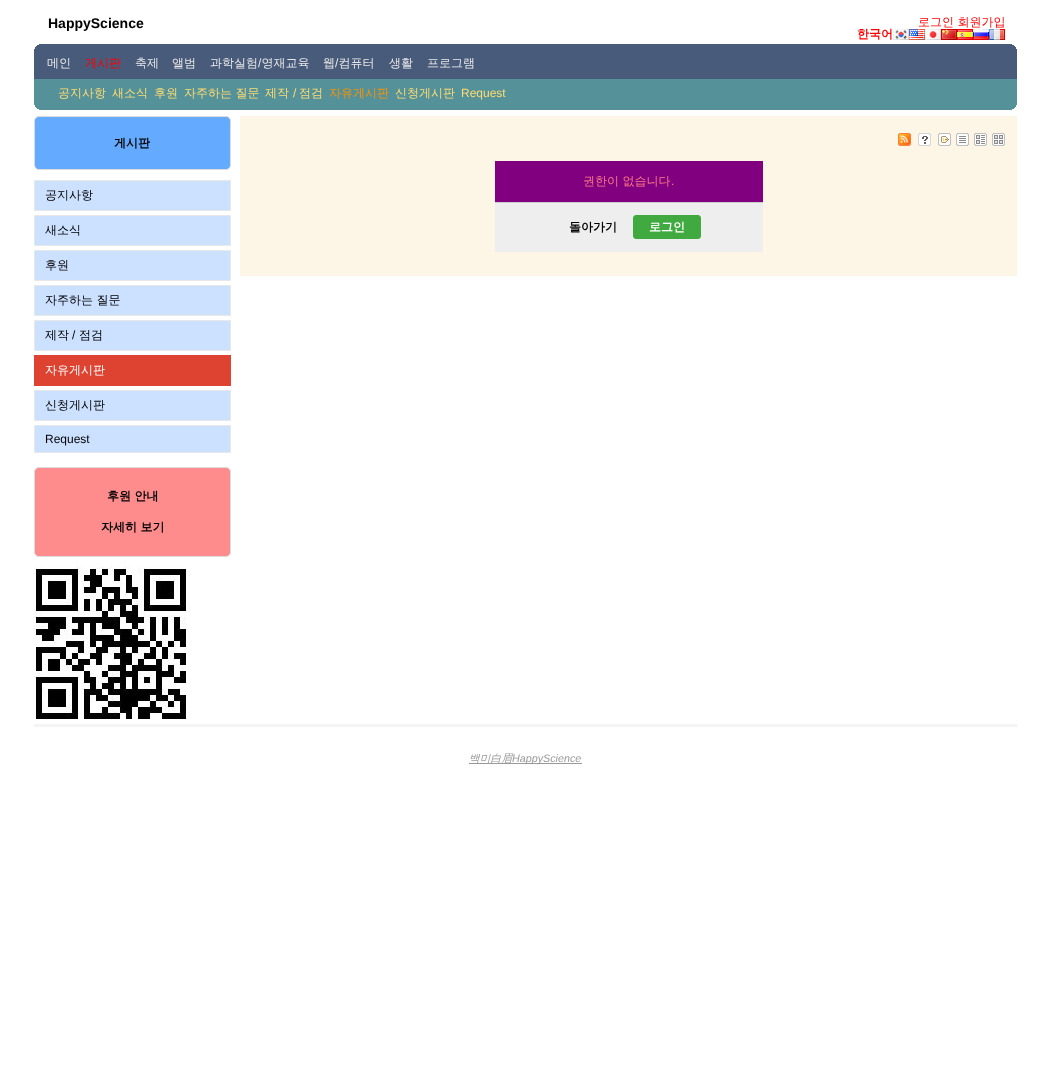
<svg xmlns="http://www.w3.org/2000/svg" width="1051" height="1076">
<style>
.a{font:bold 14px Liberation Sans;fill:#000}
.b{font:500 12px WenQuanYi Zen Hei;fill:#f00}
.c{font:bold 12px WenQuanYi Zen Hei;fill:#f00}
.d{font:500 12px WenQuanYi Zen Hei;fill:#e8e8e8}
.e{font:12px Liberation Sans;fill:#e8e8e8}
.f{font:500 12px WenQuanYi Zen Hei;fill:#ffdc74}
.g{font:12px Liberation Sans;fill:#ffdc74}
.h{font:500 12px WenQuanYi Zen Hei;fill:#ff9100}
.i{font:bold 12px WenQuanYi Zen Hei;fill:#000}
.j{font:500 12px WenQuanYi Zen Hei;fill:#000}
.k{font:12px Liberation Sans;fill:#000}
.l{font:500 12px WenQuanYi Zen Hei;fill:#fff}
.m{font:500 12px WenQuanYi Zen Hei;fill:#ff7a85}
.n{font:12px Liberation Sans;fill:#ff7a85}
.o{font:bold 12px WenQuanYi Zen Hei;fill:#fff}
.p{font:italic 500 10.75px WenQuanYi Zen Hei;fill:#999}
.q{font:italic 10.75px Liberation Sans;fill:#999}
</style>
<rect width="100%" height="100%" fill="#fff"/>
<image href="1.png" x="893" y="29" width="112" height="11"/>
<path fill="#495b7a" d="M39 44h973v2H39z"/>
<path fill="#495b7a" d="M1012 45h2v1H1012z"/>
<path fill="#495b7a" d="M37 45h2v1H37z"/>
<path fill="#495b7a" d="M36 46h979v3H36z"/>
<path fill="#495b7a" d="M1015 47h1v2H1015z"/>
<path fill="#495b7a" d="M35 47h1v2H35z"/>
<path fill="#495b7a" d="M34 49h983v30H34z"/>
<path fill="#549198" d="M34 79h983v26H34z"/>
<path fill="#549198" d="M35 105h981v2H35z"/>
<path fill="#549198" d="M36 107h979v1H36z"/>
<path fill="#549198" d="M37 108h977v1H37z"/>
<path fill="#549198" d="M39 109h973v1H39z"/>
<rect fill="#64aaff" stroke="#dcdcdc" x="34.5" y="116.5" width="196" height="53" rx="4.5"/>
<path fill="#cce1ff" stroke="#e8e8e8" d="M34.5 180.5h196v30H34.5z"/>
<path fill="#cce1ff" stroke="#e8e8e8" d="M34.5 215.5h196v30H34.5z"/>
<path fill="#cce1ff" stroke="#e8e8e8" d="M34.5 250.5h196v30H34.5z"/>
<path fill="#cce1ff" stroke="#e8e8e8" d="M34.5 285.5h196v30H34.5z"/>
<path fill="#cce1ff" stroke="#e8e8e8" d="M34.5 320.5h196v30H34.5z"/>
<path fill="#de4332" d="M34 355h197v31H34z"/>
<path fill="#cce1ff" stroke="#e8e8e8" d="M34.5 390.5h196v30H34.5z"/>
<path fill="#cce1ff" stroke="#e8e8e8" d="M34.5 425.5h196v27H34.5z"/>
<rect fill="#ff8c8c" stroke="#dcdcdc" x="34.5" y="467.5" width="196" height="89" rx="4.5"/>
<image href="2.png" x="34" y="567" width="152" height="152"/>
<path fill="#fdf5e6" d="M240 116h777v160H240z"/>
<image href="3.png" x="898" y="133" width="13" height="13"/>
<image href="4.png" x="918" y="133" width="13" height="13"/>
<image href="5.png" x="938" y="133" width="13" height="13"/>
<image href="6.png" x="956" y="133" width="13" height="13"/>
<image href="7.png" x="974" y="133" width="13" height="13"/>
<image href="8.png" x="992" y="133" width="13" height="13"/>
<path fill="#800080" d="M495 161h268v41H495z"/>
<path fill="#ccc" d="M495 202h268v1H495z"/>
<path fill="#eee" d="M495 203h268v49H495z"/>
<rect fill="#40a940" stroke="#40a940" x="633.5" y="215.5" width="67" height="23" rx="2.5"/>
<path fill="#f4f4f4" d="M34 724h983v3H34z"/>
<path fill="#999" d="M469 763h113v1H469z"/>
<text class="a" x="48" y="28">HappyScience</text>
<text class="b" x="918" y="26">로그인 회원가입</text>
<text class="c" x="857" y="38">한국어</text>
<text class="d" x="47" y="67">메인</text>
<text class="b" x="85" y="67">게시판</text>
<text class="d" x="135" y="67">축제</text>
<text class="d" x="172" y="67">앨범</text>
<text class="d" x="210" y="67">과학실험 영재교육</text>
<text class="e" x="258" y="67">/</text>
<text class="d" x="323" y="67">웹 컴퓨터</text>
<text class="e" x="335" y="67">/</text>
<text class="d" x="389" y="67">생활</text>
<text class="d" x="427" y="67">프로그램</text>
<text class="f" x="58" y="97">공지사항</text>
<text class="f" x="112" y="97">새소식</text>
<text class="f" x="154" y="97">후원</text>
<text class="f" x="184" y="97">자주하는 질문</text>
<text class="f" x="265" y="97">제작</text>
<text class="g" x="293" y="97">/</text>
<text class="f" x="299" y="97">점검</text>
<text class="h" x="329" y="97">자유게시판</text>
<text class="f" x="395" y="97">신청게시판</text>
<text class="g" x="461" y="97">Request</text>
<text class="i" x="114" y="147">게시판</text>
<text class="j" x="45" y="199">공지사항</text>
<text class="j" x="45" y="234">새소식</text>
<text class="j" x="45" y="269">후원</text>
<text class="j" x="45" y="304">자주하는 질문</text>
<text class="j" x="45" y="339">제작</text>
<text class="k" x="72" y="339">/</text>
<text class="j" x="79" y="339">점검</text>
<text class="l" x="45" y="374">자유게시판</text>
<text class="j" x="45" y="409">신청게시판</text>
<text class="k" x="45" y="443">Request</text>
<text class="i" x="107" y="500">후원 안내</text>
<text class="i" x="101" y="531">자세히 보기</text>
<text class="m" x="583" y="185">권한이 없습니다</text>
<text class="n" x="671" y="185">.</text>
<text class="i" x="569" y="231">돌아가기</text>
<text class="o" x="649" y="231">로그인</text>
<text class="p" x="469" y="762">백미白眉</text>
<text class="q" x="512" y="762">HappyScience</text>
</svg>
